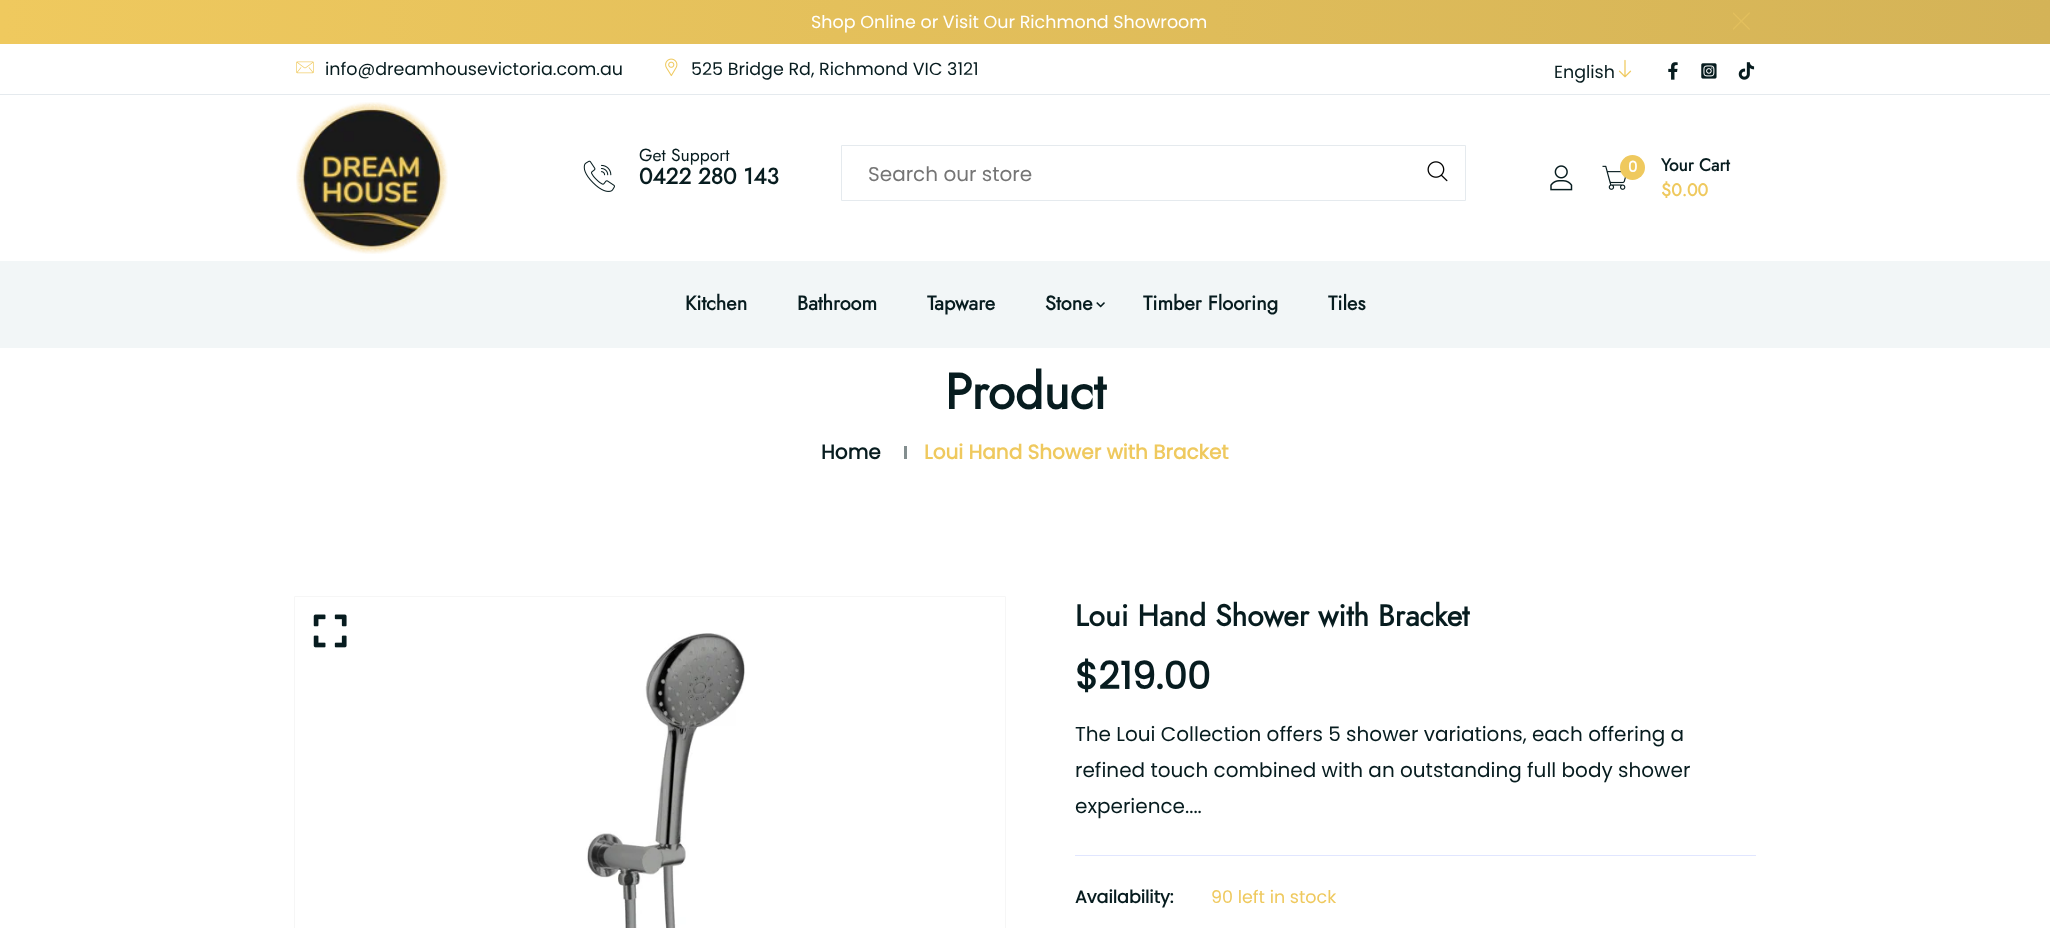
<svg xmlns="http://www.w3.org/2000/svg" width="2050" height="928">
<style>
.a{font:17.5px Poppins;fill:#fff}
.b{font:17.5px Poppins;fill:#071c1f}
.c{font:17.5px Jost;fill:#071c1f}
.d{font:bold 22.5px Jost;fill:#071c1f}
.e{font:20px Poppins;fill:#757575}
.f{font:bold 15px Poppins;fill:#fff}
.g{font:bold 17.5px Jost;fill:#071c1f}
.h{font:bold 17.5px Jost;fill:#efc95e}
.i{font:bold 20px Jost;fill:#071c1f}
.j{font:bold 50px Jost;fill:#071c1f}
.k{font:bold 20px Poppins;fill:#071c1f}
.l{font:bold 20px Poppins;fill:#efc95e}
.m{font:bold 30px Jost;fill:#071c1f}
.n{font:bold 37.5px Poppins;fill:#071c1f}
.o{font:20px Poppins;fill:#071c1f}
.p{font:bold 17.5px Poppins;fill:#071c1f}
.q{font:17.5px Poppins;fill:#efc95e}
</style>
<defs>
<linearGradient id="g1" gradientUnits="userSpaceOnUse" x1="0" y1="22" x2="2050" y2="22"><stop offset="0" stop-color="#efc95e"/><stop offset="1" stop-color="#d4b357"/></linearGradient>
</defs>
<rect width="100%" height="100%" fill="#fff"/>
<path fill="url(#g1)" d="M0 0h2050v44H0z"/>
<image href="1.png" x="1733" y="12" width="17" height="18"/>
<path fill="#e5eaee" d="M0 94h2050v1H0z"/>
<image href="2.png" x="296" y="61" width="18" height="13"/>
<image href="3.png" x="665" y="58" width="13" height="19"/>
<image href="4.png" x="1618" y="59" width="14" height="19"/>
<image href="5.png" x="1668" y="62" width="10" height="18"/>
<image href="6.png" x="1701" y="63" width="16" height="16"/>
<image href="7.png" x="1738" y="62" width="17" height="18"/>
<image href="8.png" x="296" y="102" width="152" height="152"/>
<image href="9.png" x="583" y="160" width="32" height="32"/>
<path fill="none" stroke="#e5eaee" d="M841.5 145.5h624v55H841.5z"/>
<image href="10.png" x="1427" y="161" width="21" height="21"/>
<image href="11.png" x="1550" y="165" width="23" height="26"/>
<image href="12.png" x="1602" y="165" width="24" height="25"/>
<circle fill="#efc95e" cx="1632.5" cy="167.5" r="12.5"/>
<path fill="#f2f6f7" d="M0 261h2050v87H0z"/>
<image href="13.png" x="1096" y="302" width="9" height="6"/>
<path fill="#838e8f" d="M904 446h3v13H904z"/>
<path fill="none" stroke="#f6f6f6" d="M294.5 596.5h711v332H294.5z"/>
<image href="14.png" x="295" y="598" width="710" height="330"/>
<image href="15.png" x="313" y="614" width="34" height="34"/>
<path fill="#e1e6ff" d="M1075 855h681v1H1075z"/>
<text class="a" x="811" y="28">Shop Online or Visit Our Richmond Showroom</text>
<text class="b" x="325" y="75">info@dreamhousevictoria.com.au</text>
<text class="b" x="691" y="75">525 Bridge Rd, Richmond VIC 3121</text>
<text class="b" x="1554" y="78">English</text>
<text class="c" x="639" y="161">Get Support</text>
<text class="d" x="639" y="184">0422 280 143</text>
<text class="e" x="868" y="181">Search our store</text>
<text class="f" x="1628" y="172">0</text>
<text class="g" x="1661" y="171">Your Cart</text>
<text class="h" x="1661" y="196">$0.00</text>
<text class="i" x="685" y="310">Kitchen</text>
<text class="i" x="797" y="310">Bathroom</text>
<text class="i" x="927" y="310">Tapware</text>
<text class="i" x="1045" y="310">Stone</text>
<text class="i" x="1143" y="310">Timber Flooring</text>
<text class="i" x="1328" y="310">Tiles</text>
<text class="j" x="945" y="409">Product</text>
<text class="k" x="821" y="459">Home</text>
<text class="l" x="924" y="459">Loui Hand Shower with Bracket</text>
<text class="m" x="1075" y="626">Loui Hand Shower with Bracket</text>
<text class="n" x="1075" y="689">$219.00</text>
<text class="o" x="1075" y="741">The Loui Collection offers 5 shower variations, each offering a</text>
<text class="o" x="1075" y="777">refined touch combined with an outstanding full body shower</text>
<text class="o" x="1075" y="813">experience....</text>
<text class="p" x="1075" y="903">Availability:</text>
<text class="q" x="1211" y="903">90 left in stock</text>
</svg>
